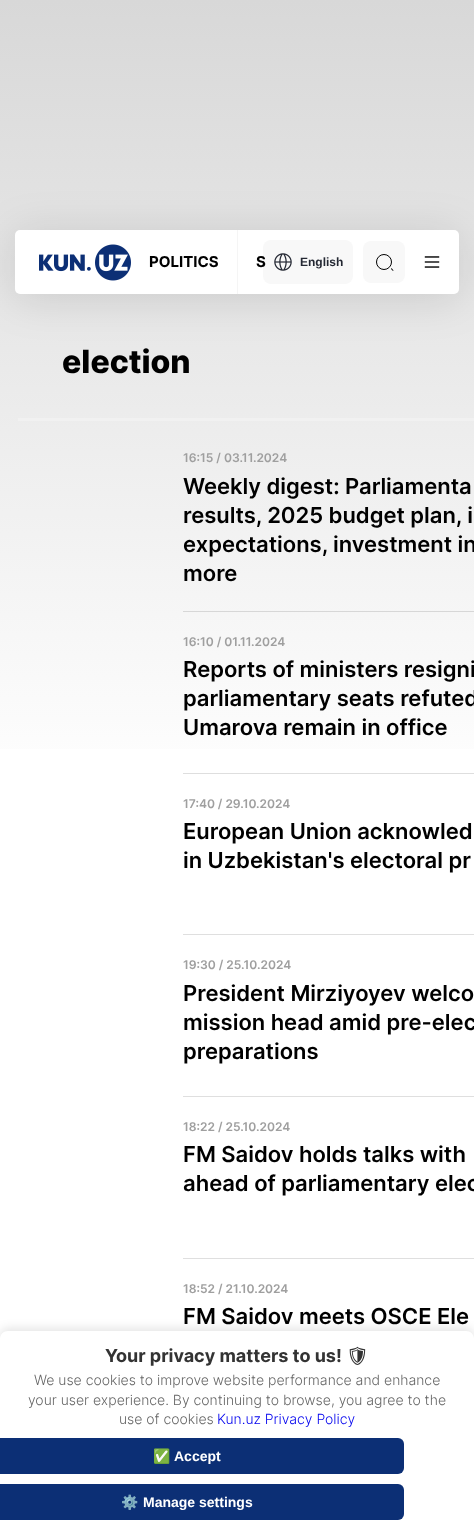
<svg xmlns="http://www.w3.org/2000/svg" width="474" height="1535">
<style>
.a{font:bold 15px Inter;fill:#000}
.b{font:bold 12px Liberation Sans;fill:#242833}
.c{font:800 32px Inter;fill:#000}
.d{font:600 12px Inter;fill:#9f9f9f}
.e{font:600 22px Inter;fill:#000}
.f{font:bold 18px Inter;fill:#333}
.g{font:bold 18px Noto Emoji;fill:#333}
.h{font:300 14px Inter;fill:#666}
.i{font:300 14px Inter;fill:#00e}
.j{font:bold 14px Noto Color Emoji;fill:#fff}
.k{font:bold 14px Liberation Sans;fill:#fff}
</style>
<defs>
<linearGradient id="g1" gradientUnits="userSpaceOnUse" x1="237" y1="0" x2="237" y2="800"><stop offset="0" stop-color="#d8d8d8"/><stop offset="1" stop-color="#fff"/></linearGradient>
</defs>
<rect width="100%" height="100%" fill="#fff"/>
<path fill="url(#g1)" d="M0 0h474v749H0z"/>
<rect fill="#0000001f" filter="blur(22px)" x="15" y="234" width="444" height="64" rx="5"/>
<rect fill="#fff" x="15" y="230" width="444" height="64" rx="5"/>
<image href="1.png" x="39" y="244" width="92" height="37"/>
<path fill="#f5f5f5" d="M237 230h1v64H237z"/>
<rect fill="#f8f8f8" x="263" y="240" width="90" height="44" rx="8"/>
<image href="2.png" x="274" y="253" width="18" height="18"/>
<rect fill="#f8f8f8" x="363" y="241" width="42" height="42" rx="8"/>
<circle fill="none" stroke="#000" cx="384" cy="262" r="7.5"/>
<path fill="#000" d="M391.5 268l2 2.5l-.5 .5l-2-2z"/>
<image href="3.png" x="424" y="256" width="16" height="12"/>
<path fill="#f1f1f1" d="M18 418h456v3H18z"/>
<path fill="#d7d7d7" d="M183 611h291v1H183z"/>
<path fill="#dedede" d="M183 773h291v1H183z"/>
<path fill="#dfdfdf" d="M183 934h291v1H183z"/>
<path fill="#dfdfdf" d="M183 1096h291v1H183z"/>
<path fill="#dfdfdf" d="M183 1258h291v1H183z"/>
<rect fill="#0000001a" filter="blur(5px)" y="1328" width="474" height="204" rx="8"/>
<path fill="#fff" d="M8 1331h458c4.5 0 8 3.5 8 8v196h-474v-196c0-4.5 3.5-8 8-8z"/>
<rect fill="#0c2f75" x="-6" y="1438" width="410" height="36" rx="6"/>
<rect fill="#0c2f75" x="-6" y="1484" width="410" height="36" rx="6"/>
<text class="a" x="149" y="267">POLITICS</text>
<text class="a" x="256" y="267">S</text>
<text class="b" x="300" y="266">English</text>
<text class="c" x="62" y="373">election</text>
<text class="d" x="183" y="462">16:15 / 03.11.2024</text>
<text class="e" x="183" y="494">Weekly digest: Parliamenta</text>
<text class="e" x="183" y="523">results, 2025 budget plan, i</text>
<text class="e" x="183" y="552">expectations, investment in</text>
<text class="e" x="183" y="581">more</text>
<text class="d" x="183" y="646">16:10 / 01.11.2024</text>
<text class="e" x="183" y="677">Reports of ministers resigni</text>
<text class="e" x="183" y="706">parliamentary seats refuted</text>
<text class="e" x="183" y="735">Umarova remain in office</text>
<text class="d" x="183" y="808">17:40 / 29.10.2024</text>
<text class="e" x="183" y="839">European Union acknowled</text>
<text class="e" x="183" y="868">in Uzbekistan's electoral pr</text>
<text class="d" x="183" y="969">19:30 / 25.10.2024</text>
<text class="e" x="183" y="1001">President Mirziyoyev welco</text>
<text class="e" x="183" y="1030">mission head amid pre-elec</text>
<text class="e" x="183" y="1059">preparations</text>
<text class="d" x="183" y="1131">18:22 / 25.10.2024</text>
<text class="e" x="183" y="1162">FM Saidov holds talks with</text>
<text class="e" x="183" y="1191">ahead of parliamentary elec</text>
<text class="d" x="183" y="1293">18:52 / 21.10.2024</text>
<text class="e" x="183" y="1324">FM Saidov meets OSCE Ele</text>
<text class="f" x="105" y="1362">Your privacy matters to us!</text>
<text class="g" x="346" y="1362">🛡</text>
<text class="h" x="34" y="1385">We use cookies to improve website performance and enhance</text>
<text class="h" x="28" y="1405">your user experience. By continuing to browse, you agree to the</text>
<text class="h" x="119" y="1424">use of cookies</text>
<text class="i" x="217" y="1424">Kun.uz Privacy Policy</text>
<text class="j" x="153" y="1461">✅</text>
<text class="k" x="174" y="1461">Accept</text>
<text class="j" x="121" y="1507">⚙️</text>
<text class="k" x="143" y="1507">Manage settings</text>
</svg>
